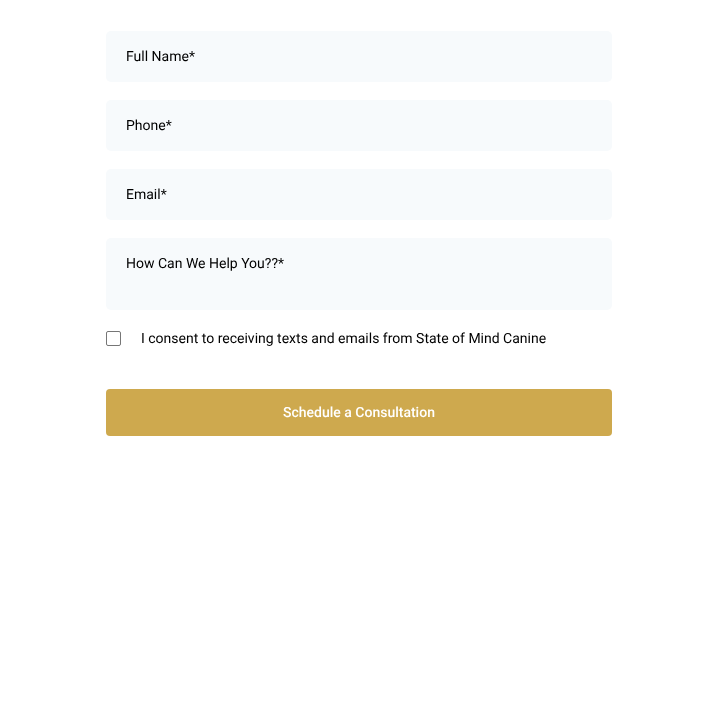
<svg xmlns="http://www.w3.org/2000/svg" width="718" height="707">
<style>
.a{font:14px Roboto;fill:#000}
.b{font:500 14px Roboto;fill:#fff}
</style>
<rect width="100%" height="100%" fill="#fff"/>
<rect fill="#f7fafc" x="106" y="31" width="506" height="51" rx="5"/>
<rect fill="#f7fafc" x="106" y="100" width="506" height="51" rx="5"/>
<rect fill="#f7fafc" x="106" y="169" width="506" height="51" rx="5"/>
<rect fill="#f7fafc" x="106" y="238" width="506" height="72" rx="5"/>
<rect fill="none" stroke="#767676" x="106.5" y="331.5" width="14" height="14" rx="1.5"/>
<rect fill="#cea94e" x="106" y="389" width="506" height="47" rx="4"/>
<text class="a" x="126" y="61">Full Name*</text>
<text class="a" x="126" y="130">Phone*</text>
<text class="a" x="126" y="199">Email*</text>
<text class="a" x="126" y="268">How Can We Help You??*</text>
<text class="a" x="141" y="343">I consent to receiving texts and emails from State of Mind Canine</text>
<text class="b" x="283" y="417">Schedule a Consultation</text>
</svg>
